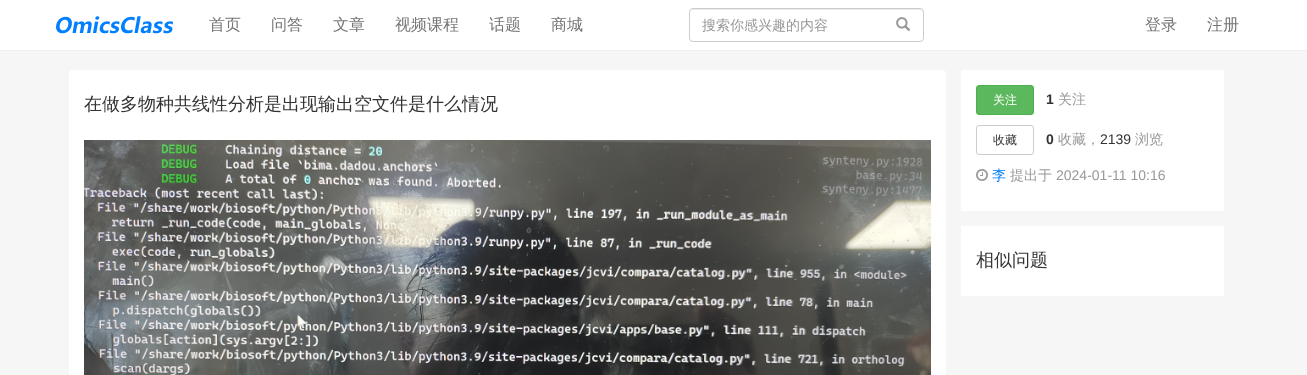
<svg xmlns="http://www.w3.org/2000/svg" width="1307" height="375">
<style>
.a{font:500 16px WenQuanYi Zen Hei;fill:#757575}
.b{font:500 14px WenQuanYi Zen Hei;fill:#999}
.c{font:500 18px WenQuanYi Zen Hei;fill:#333}
.d{font:500 12px WenQuanYi Zen Hei;fill:#fff}
.e{font:bold 14px Liberation Sans;fill:#333}
.f{font:500 12px WenQuanYi Zen Hei;fill:#333}
.g{font:14px Liberation Sans;fill:#333}
.h{font:500 14px WenQuanYi Zen Hei;fill:#007fff}
.i{font:14px Liberation Sans;fill:#999}
</style>
<rect width="100%" height="100%" fill="#f6f6f6"/>
<path fill="#fff" d="M0 0h1307v50H0z"/>
<path fill="#f1f1f1" d="M0 50h1307v1H0z"/>
<image href="1.png" x="56" y="16" width="117" height="18"/>
<path fill="#ececec" d="M693 10h227c2 0 3 1 3 3c0-2-1-4-3-4h-227c-2 0-3 2-3 4c0-2 1-3 3-3z"/>
<rect fill="none" stroke="#ccc" x="689.5" y="8.5" width="234" height="33" rx="3.5"/>
<image href="2.png" x="896" y="17" width="14" height="14"/>
<rect fill="#fff" x="69" y="70" width="877" height="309" rx="4"/>
<image href="3.png" x="84" y="140" width="847" height="235"/>
<path fill="#fff" d="M961 70h263v141H961z"/>
<rect fill="#5cb85c" stroke="#4cae4c" x="976.5" y="85.5" width="57" height="29" rx="2.5"/>
<rect fill="none" stroke="#ccc" x="976.5" y="125.5" width="57" height="29" rx="2.5"/>
<image href="4.png" x="976" y="169" width="12" height="12"/>
<path fill="#fff" d="M961 226h263v70H961z"/>
<text class="a" x="209" y="30">首页</text>
<text class="a" x="271" y="30">问答</text>
<text class="a" x="333" y="30">文章</text>
<text class="a" x="395" y="30">视频课程</text>
<text class="a" x="489" y="30">话题</text>
<text class="a" x="551" y="30">商城</text>
<text class="b" x="702" y="30">搜索你感兴趣的内容</text>
<text class="a" x="1145" y="30">登录</text>
<text class="a" x="1207" y="30">注册</text>
<text class="c" x="84" y="110">在做多物种共线性分析是出现输出空文件是什么情况</text>
<text class="d" x="993" y="104">关注</text>
<text class="e" x="1046" y="104">1</text>
<text class="b" x="1058" y="104">关注</text>
<text class="f" x="993" y="144">收藏</text>
<text class="e" x="1046" y="144">0</text>
<text class="b" x="1058" y="144">收藏，</text>
<text class="g" x="1100" y="144">2139</text>
<text class="b" x="1135" y="144">浏览</text>
<text class="h" x="992" y="180">李</text>
<text class="b" x="1010" y="180">提出于</text>
<text class="i" x="1056" y="180">2024-01-11 10:16</text>
<text class="c" x="976" y="266">相似问题</text>
</svg>
